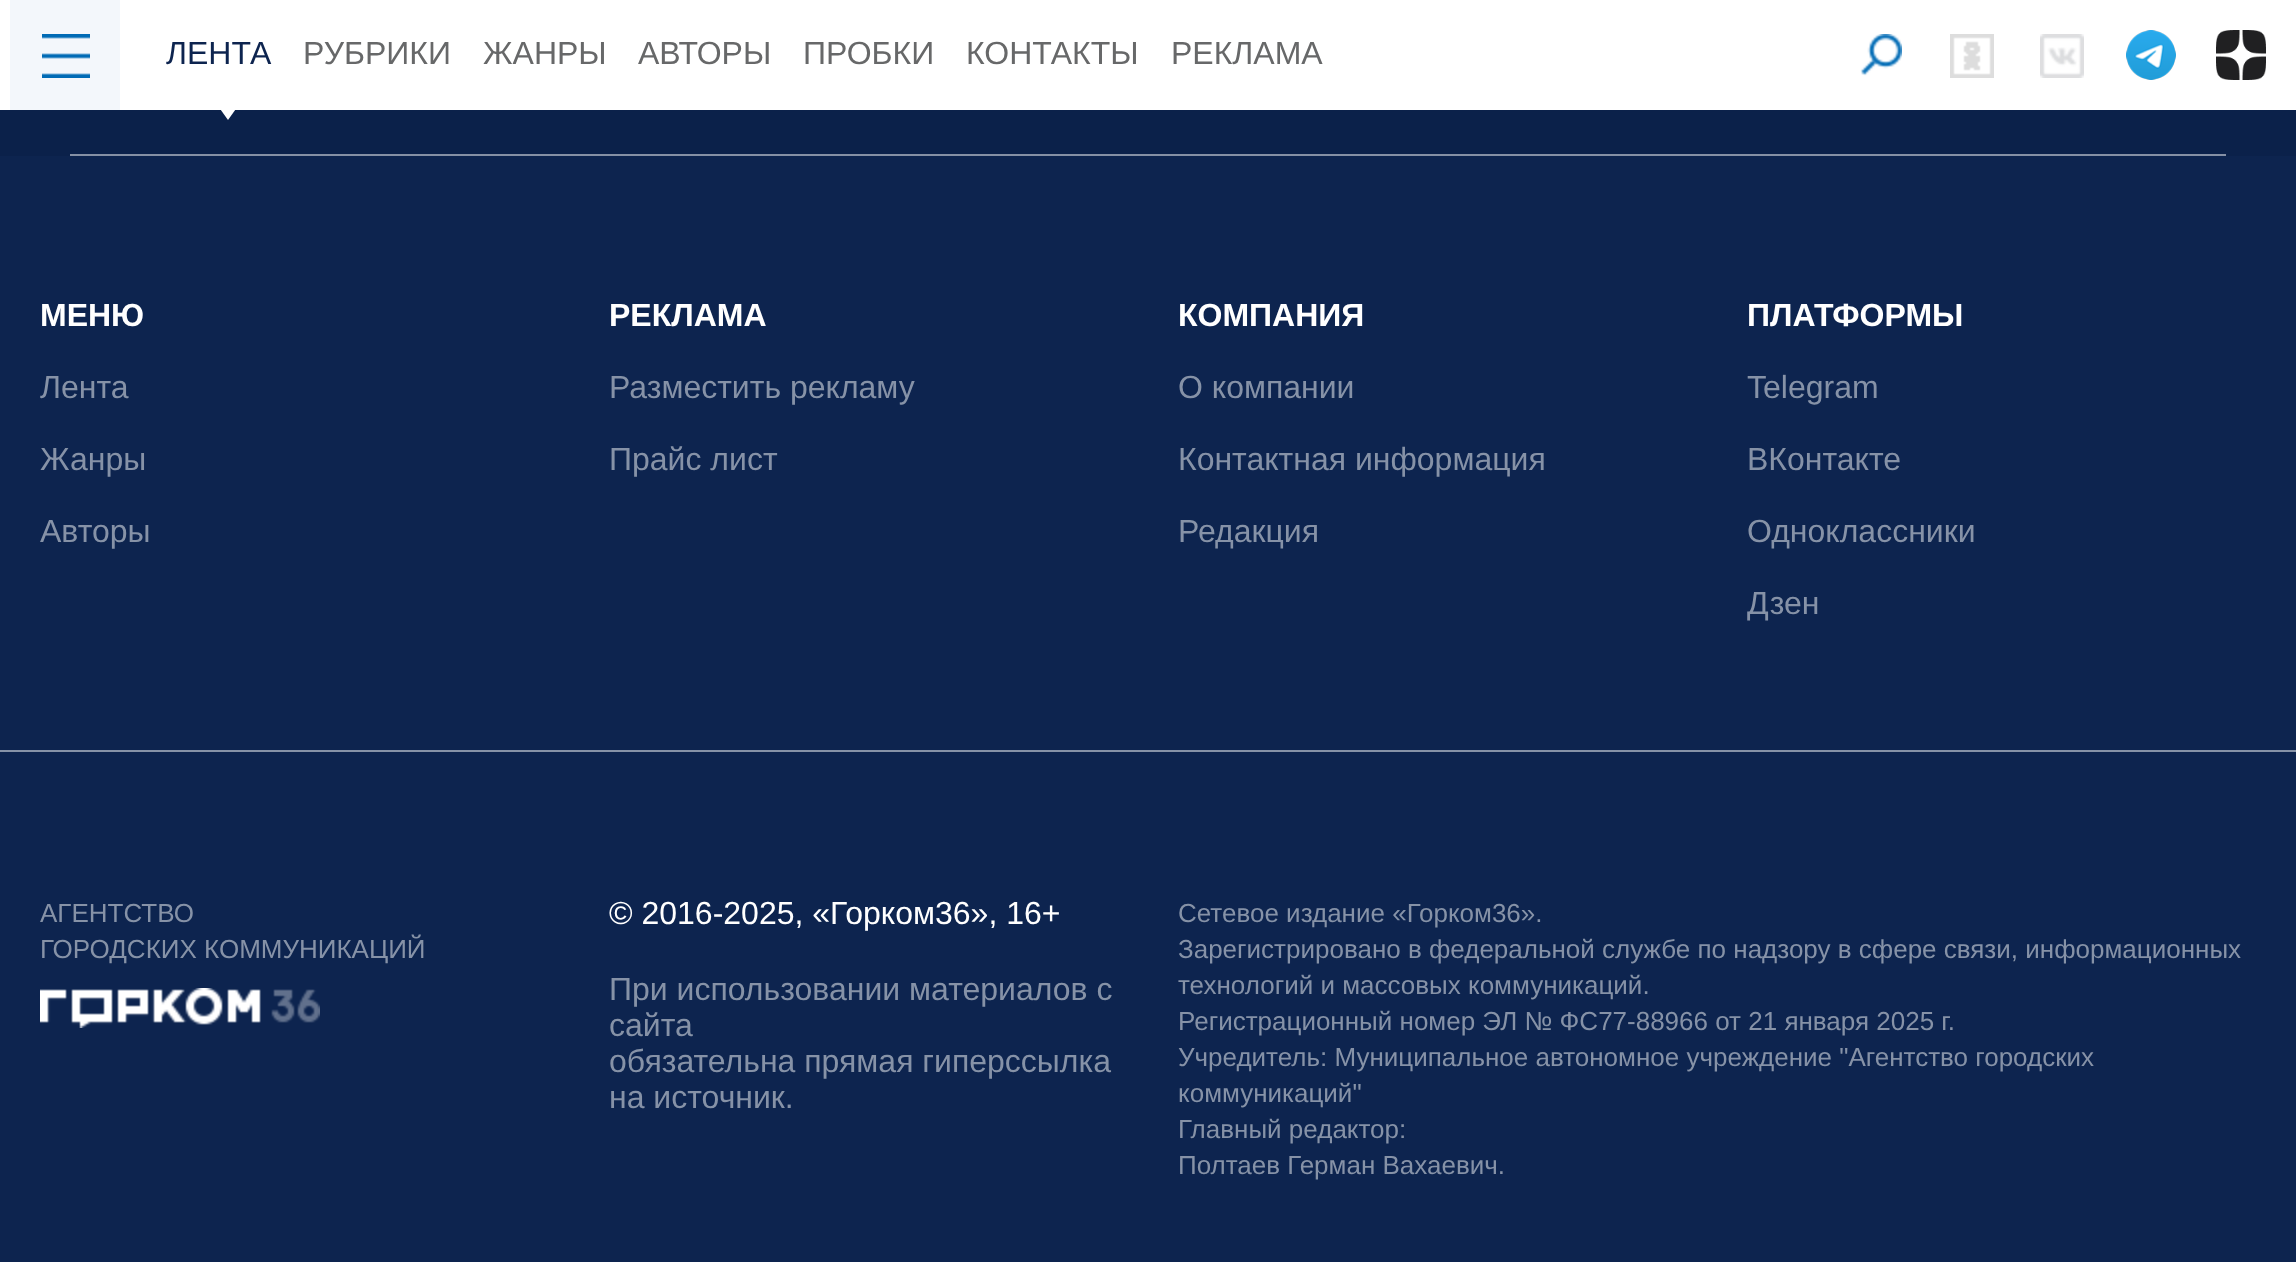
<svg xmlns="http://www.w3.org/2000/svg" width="2296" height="1262">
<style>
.a{font:32px Liberation Sans;fill:#0d244f}
.b{font:32px Liberation Sans;fill:#676869}
.c{font:bold 32px Liberation Sans;fill:#fff}
.d{font:32px Liberation Sans;fill:#8692a7}
.e{font:26px Liberation Sans;fill:#8692a7}
.f{font:32px Liberation Sans;fill:#fff}
</style>
<rect width="100%" height="100%" fill="#0b214a"/>
<path fill="#fff" d="M0 0h2296v110H0z"/>
<path fill="#f3f7fb" d="M10 0h110v110H10z"/>
<image href="1.png" x="42" y="34" width="48" height="44"/>
<path fill="#fff" d="M218 106h20l-10 14z"/>
<image href="2.png" x="1860" y="34" width="42" height="42"/>
<image href="3.png" x="1950" y="34" width="44" height="44"/>
<image href="4.png" x="2040" y="34" width="44" height="44"/>
<image href="5.png" x="2126" y="30" width="50" height="50"/>
<image href="6.png" x="2216" y="30" width="50" height="50"/>
<path fill="#8590a5" d="M70 154h2156v2H70z"/>
<path fill="#0d244f" d="M0 156h2296v594H0z"/>
<path fill="#8692a7" d="M0 750h2296v2H0z"/>
<path fill="#0d244f" d="M0 752h2296v510H0z"/>
<image href="7.png" x="40" y="988" width="280" height="40"/>
<text class="a" x="166" y="64">ЛЕНТА</text>
<text class="b" x="303" y="64">РУБРИКИ</text>
<text class="b" x="483" y="64">ЖАНРЫ</text>
<text class="b" x="638" y="64">АВТОРЫ</text>
<text class="b" x="803" y="64">ПРОБКИ</text>
<text class="b" x="966" y="64">КОНТАКТЫ</text>
<text class="b" x="1171" y="64">РЕКЛАМА</text>
<text class="c" x="40" y="326">МЕНЮ</text>
<text class="d" x="40" y="398">Лента</text>
<text class="d" x="40" y="470">Жанры</text>
<text class="d" x="40" y="542">Авторы</text>
<text class="c" x="609" y="326">РЕКЛАМА</text>
<text class="d" x="609" y="398">Разместить рекламу</text>
<text class="d" x="609" y="470">Прайс лист</text>
<text class="c" x="1178" y="326">КОМПАНИЯ</text>
<text class="d" x="1178" y="398">О компании</text>
<text class="d" x="1178" y="470">Контактная информация</text>
<text class="d" x="1178" y="542">Редакция</text>
<text class="c" x="1747" y="326">ПЛАТФОРМЫ</text>
<text class="d" x="1747" y="398">Telegram</text>
<text class="d" x="1747" y="470">ВКонтакте</text>
<text class="d" x="1747" y="542">Одноклассники</text>
<text class="d" x="1747" y="614">Дзен</text>
<text class="e" x="40" y="922">АГЕНТСТВО</text>
<text class="e" x="40" y="958">ГОРОДСКИХ КОММУНИКАЦИЙ</text>
<text class="f" x="609" y="924">© 2016-2025, «Горком36», 16+</text>
<text class="d" x="609" y="1000">При использовании материалов с</text>
<text class="d" x="609" y="1036">сайта</text>
<text class="d" x="609" y="1072">обязательна прямая гиперссылка</text>
<text class="d" x="609" y="1108">на источник.</text>
<text class="e" x="1178" y="922">Сетевое издание «Горком36».</text>
<text class="e" x="1178" y="958">Зарегистрировано в федеральной службе по надзору в сфере связи, информационных</text>
<text class="e" x="1178" y="994">технологий и массовых коммуникаций.</text>
<text class="e" x="1178" y="1030">Регистрационный номер ЭЛ № ФС77-88966 от 21 января 2025 г.</text>
<text class="e" x="1178" y="1066">Учредитель: Муниципальное автономное учреждение "Агентство городских</text>
<text class="e" x="1178" y="1102">коммуникаций"</text>
<text class="e" x="1178" y="1138">Главный редактор:</text>
<text class="e" x="1178" y="1174">Полтаев Герман Вахаевич.</text>
</svg>
